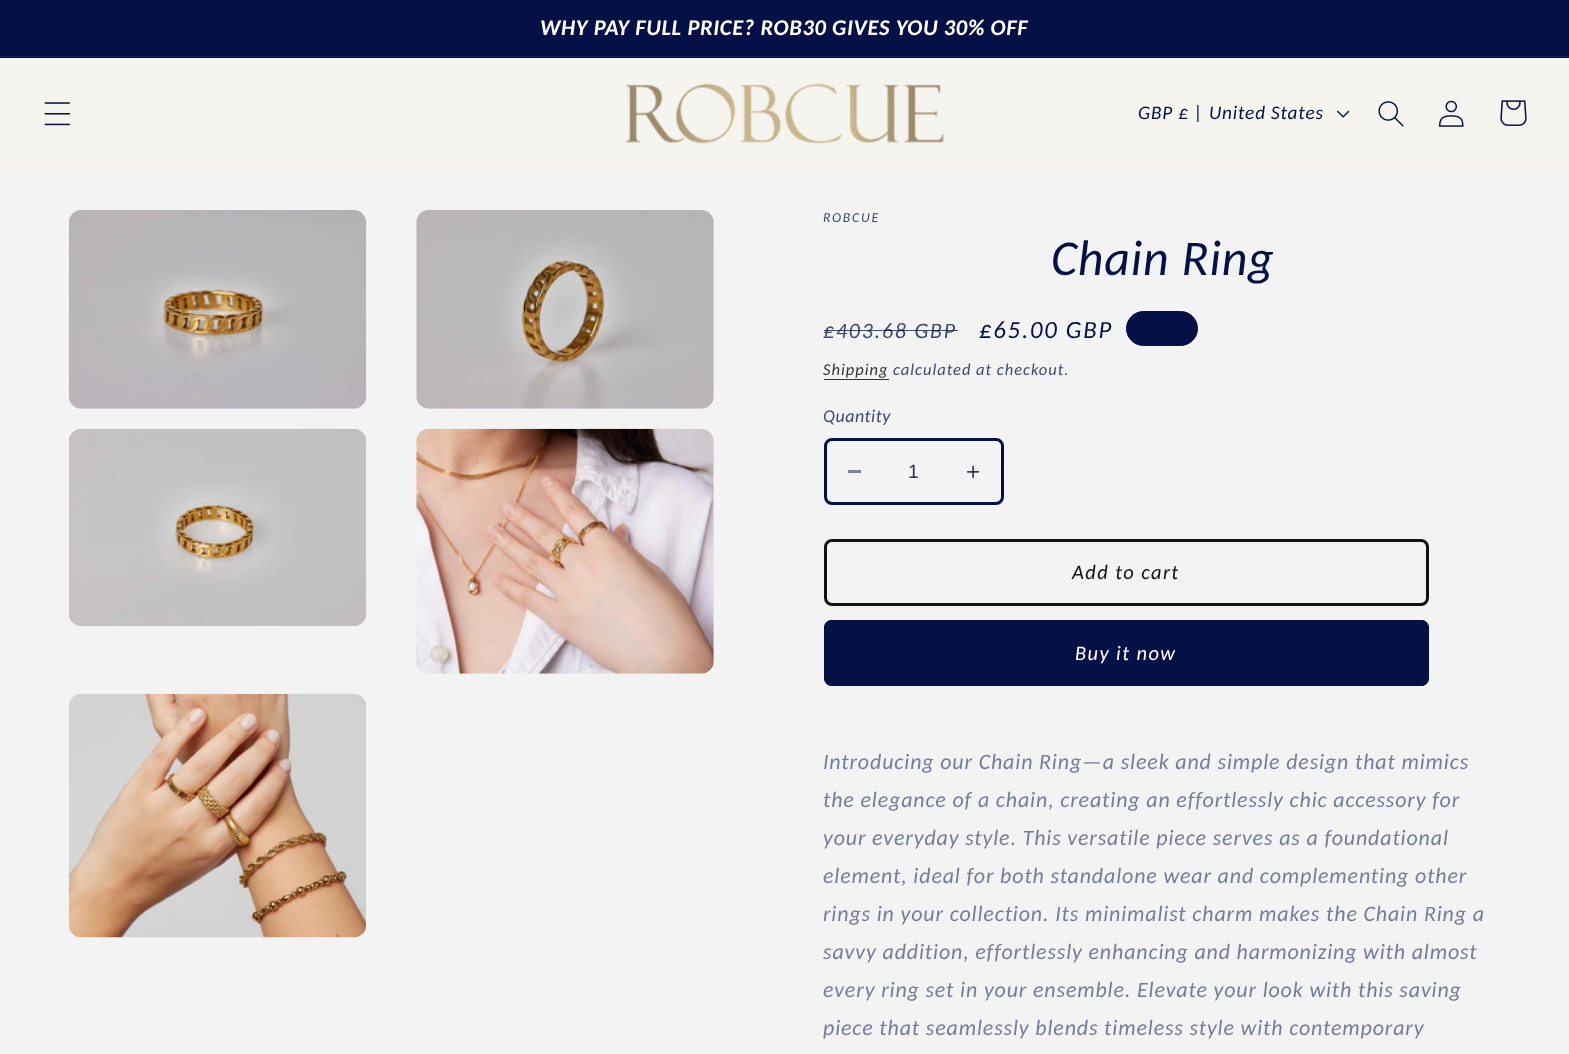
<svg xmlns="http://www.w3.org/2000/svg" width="1569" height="1054">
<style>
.a{font:italic bold 22.5px Carlito;letter-spacing:0.6px;fill:#fff}
.b{font:italic 19.25px Carlito;letter-spacing:0.83px;fill:#051047}
.c{font:italic 13.75px Carlito;letter-spacing:1.75px;fill:#414972}
.d{font:italic 50px Carlito;letter-spacing:0.75px;fill:#051047}
.e{font:italic 22px Carlito;letter-spacing:1.75px;fill:#414972}
.f{font:italic 24.75px Carlito;letter-spacing:1.75px;fill:#051047}
.g{font:italic 16.5px Carlito;letter-spacing:1px;fill:#343434}
.h{font:italic 16.5px Carlito;letter-spacing:1px;fill:#414972}
.i{font:italic 18px Carlito;letter-spacing:0.5px;fill:#414972}
.j{font:19.25px Liberation Sans;fill:#293261}
.k{font:italic 20.5px Carlito;letter-spacing:1.4px;fill:#121212}
.l{font:italic 20.5px Carlito;letter-spacing:1.4px;fill:#fff}
.m{font:italic 22px Carlito;letter-spacing:0.83px;fill:#767c99}
</style>
<rect width="100%" height="100%" fill="#f3f3f3"/>
<path fill="#051047" d="M0 0h1569v58H0z"/>
<path fill="#192356" d="M0 56h1569v1H0z"/>
<path fill="#f5f4ef" d="M0 58h1569v107H0z"/>
<image href="1.png" x="44" y="102" width="26" height="24"/>
<image href="2.png" x="625" y="83" width="319" height="61"/>
<image href="3.png" x="1337" y="110" width="13" height="8"/>
<image href="4.png" x="1378" y="101" width="26" height="26"/>
<image href="5.png" x="1438" y="100" width="26" height="27"/>
<image href="6.png" x="1500" y="100" width="27" height="26"/>
<image href="7.png" x="68" y="210" width="299" height="199"/>
<image href="8.png" x="416" y="210" width="298" height="199"/>
<image href="9.png" x="69" y="429" width="297" height="197"/>
<image href="10.png" x="416" y="428" width="298" height="246"/>
<image href="11.png" x="68" y="693" width="299" height="245"/>
<rect fill="#051047" stroke="#051047" x="1126.5" y="311.5" width="71" height="34" rx="17"/>
<path fill="#343434" d="M824 379h65v1H824z"/>
<path fill="#7c829d" d="M848 470h13v3H848z"/>
<image href="12.png" x="967" y="465" width="13" height="13"/>
<rect fill="none" stroke="#051047" stroke-width="3" x="825.5" y="439.5" width="177" height="64" rx="6.5"/>
<rect fill="none" stroke="#121212" stroke-width="3" x="825.5" y="540.5" width="602" height="64" rx="6.5"/>
<rect fill="#051047" x="824" y="620" width="605" height="66" rx="8"/>
<rect fill="none" stroke="#051047" stroke-width="3" x="825.5" y="621.5" width="602" height="63" rx="6.5"/>
<text class="a" x="540" y="35">WHY PAY FULL PRICE? ROB30 GIVES YOU 30% OFF</text>
<text class="b" x="1138" y="119">GBP £ | United States</text>
<text class="c" x="823" y="222">ROBCUE</text>
<text class="d" x="1051" y="275">Chain Ring</text>
<text class="e" x="823" y="338">£403.68 GBP</text>
<path fill="#051047bf" d="M824 330h134v1H824z"/>
<text class="f" x="979" y="338">£65.00 GBP</text>
<text class="g" x="823" y="375">Shipping</text>
<text class="h" x="893" y="375">calculated at checkout.</text>
<text class="i" x="823" y="422">Quantity</text>
<text class="j" x="908" y="478">1</text>
<text class="k" x="1072" y="579">Add to cart</text>
<text class="l" x="1075" y="660">Buy it now</text>
<text class="m" x="823" y="769">Introducing our Chain Ring—a sleek and simple design that mimics</text>
<text class="m" x="823" y="807">the elegance of a chain, creating an effortlessly chic accessory for</text>
<text class="m" x="823" y="845">your everyday style. This versatile piece serves as a foundational</text>
<text class="m" x="823" y="883">element, ideal for both standalone wear and complementing other</text>
<text class="m" x="823" y="921">rings in your collection. Its minimalist charm makes the Chain Ring a</text>
<text class="m" x="823" y="959">savvy addition, effortlessly enhancing and harmonizing with almost</text>
<text class="m" x="823" y="997">every ring set in your ensemble. Elevate your look with this saving</text>
<text class="m" x="823" y="1035">piece that seamlessly blends timeless style with contemporary</text>
</svg>
